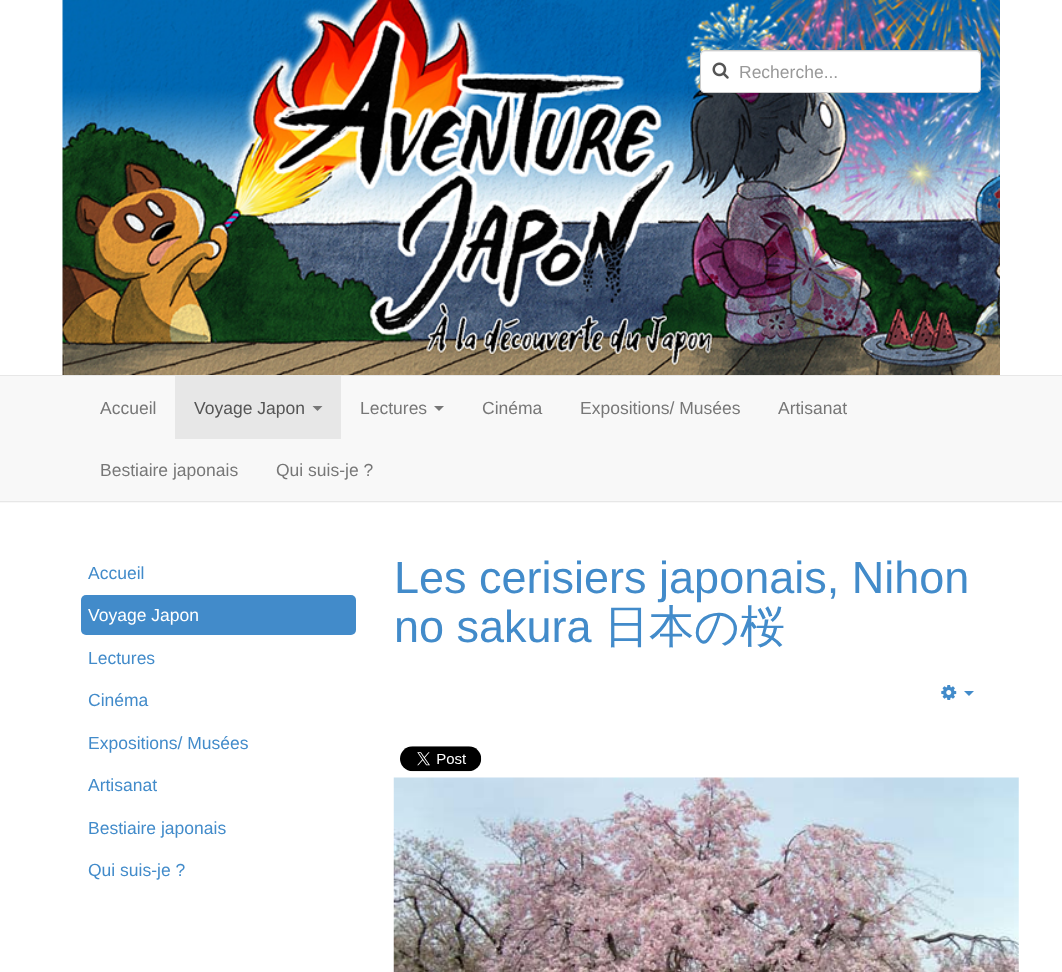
<svg xmlns="http://www.w3.org/2000/svg" width="1062" height="972">
<style>
.a{font:17.5px Liberation Sans;fill:#999}
.b{font:17.5px Liberation Sans;fill:#777}
.c{font:17.5px Liberation Sans;fill:#555}
.d{font:17.5px Liberation Sans;fill:#428bca}
.e{font:17.5px Liberation Sans;fill:#fff}
.f{font:45px Liberation Sans;fill:#428bca}
.g{font:500 45px WenQuanYi Zen Hei;fill:#428bca}
</style>
<rect width="100%" height="100%" fill="#fff"/>
<image href="1.png" x="62" y="0" width="938" height="375"/>
<rect fill="#fff" x="700" y="50" width="281" height="43" rx="5"/>
<path fill="#ececec" d="M705 52h271c2 0 4 2 4 4c0-3-1-5-4-5h-271c-3 0-4 2-4 5c0-2 2-4 4-4z"/>
<rect fill="none" stroke="#ccc" x="700.5" y="50.5" width="280" height="42" rx="4.5"/>
<image href="2.png" x="712" y="62" width="17" height="17"/>
<path fill="#f8f8f8" d="M0 376h1062v127H0z"/>
<path fill="#e7e7e7" d="M0 375h1062v1H0z"/>
<path fill="#e7e7e7" d="M0 501h1062v1H0z"/>
<path fill="#e7e7e7" d="M175 376h166v63H175z"/>
<path fill="#777" d="M312.5 406h10l-5 5z"/>
<path fill="#777" d="M434 406h10l-5 5z"/>
<rect fill="#428bca" x="81" y="595" width="275" height="40" rx="5"/>
<image href="3.png" x="941" y="685" width="16" height="15"/>
<path fill="#428bca" d="M964 691h10l-5 5z"/>
<image href="4.png" x="400" y="746" width="82" height="26"/>
<image href="5.png" x="393" y="777" width="626" height="195"/>
<text class="a" x="739" y="78">Recherche...</text>
<text class="b" x="100" y="414">Accueil</text>
<text class="c" x="194" y="414">Voyage Japon</text>
<text class="b" x="360" y="414">Lectures</text>
<text class="b" x="482" y="414">Cinéma</text>
<text class="b" x="580" y="414">Expositions/ Musées</text>
<text class="b" x="778" y="414">Artisanat</text>
<text class="b" x="100" y="476">Bestiaire japonais</text>
<text class="b" x="276" y="476">Qui suis-je ?</text>
<text class="d" x="88" y="579">Accueil</text>
<text class="e" x="88" y="621">Voyage Japon</text>
<text class="d" x="88" y="664">Lectures</text>
<text class="d" x="88" y="706">Cinéma</text>
<text class="d" x="88" y="749">Expositions/ Musées</text>
<text class="d" x="88" y="791">Artisanat</text>
<text class="d" x="88" y="834">Bestiaire japonais</text>
<text class="d" x="88" y="876">Qui suis-je ?</text>
<text class="f" x="394" y="593">Les cerisiers japonais, Nihon</text>
<text class="f" x="394" y="642">no sakura</text>
<text class="g" x="604" y="642">日本の桜</text>
</svg>
